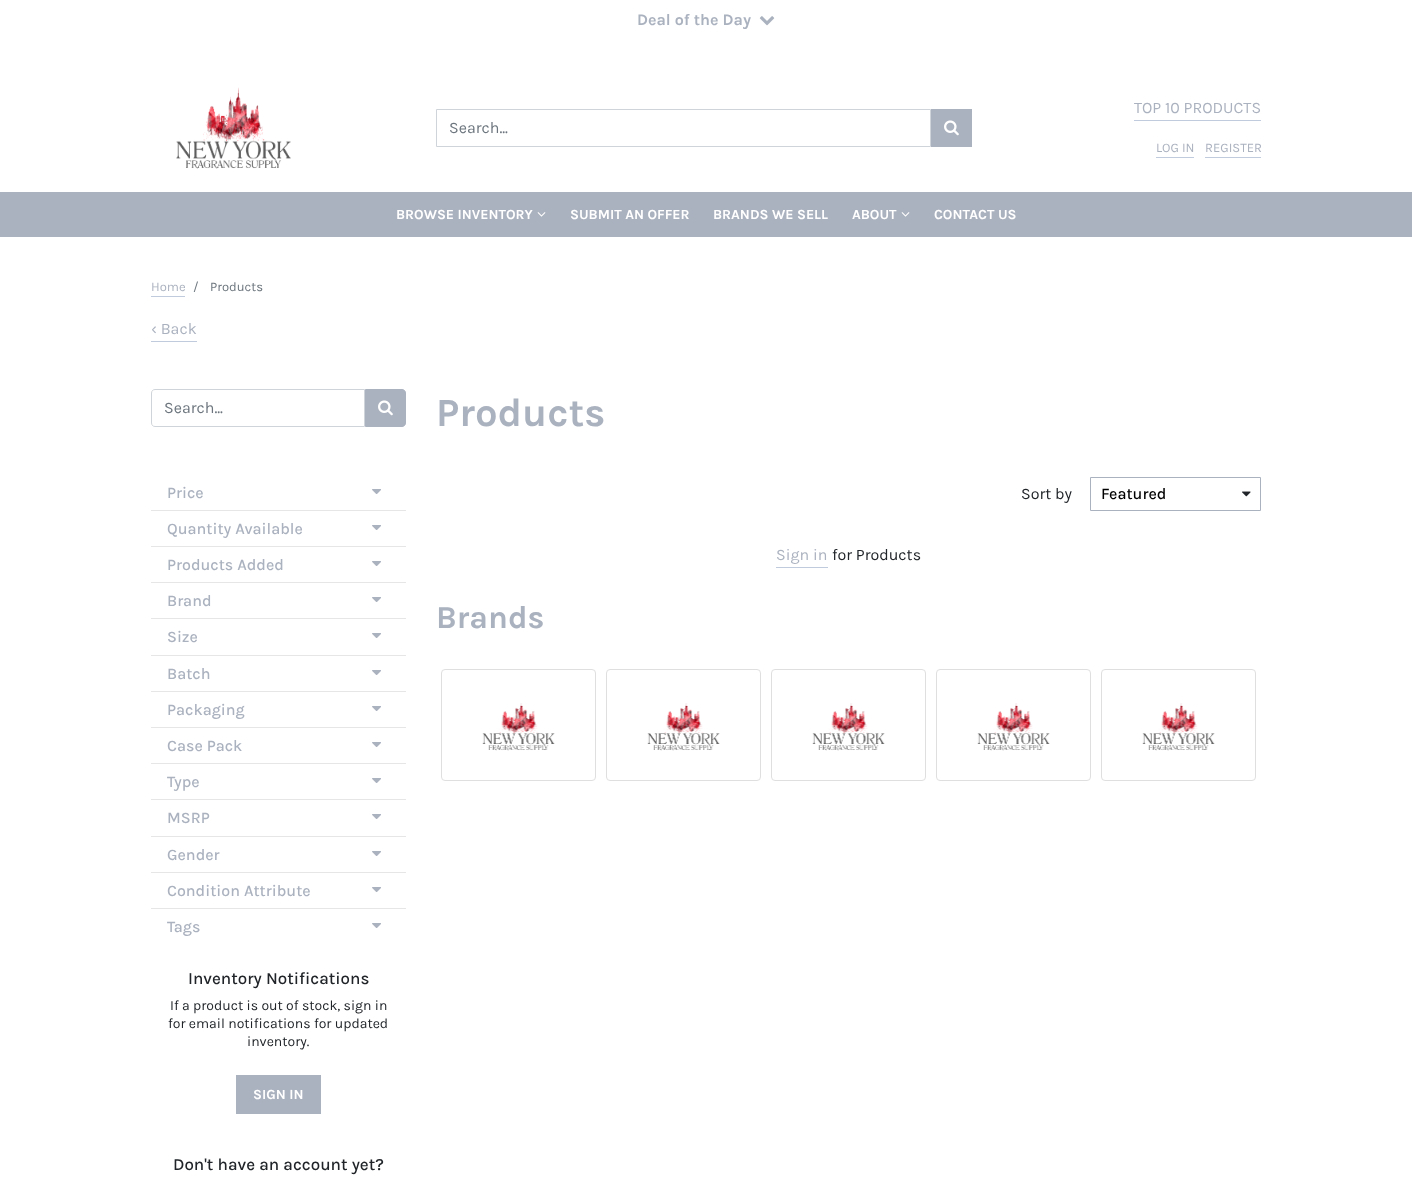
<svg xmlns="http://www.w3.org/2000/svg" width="1412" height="1180">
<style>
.a{font:bold 16px Karla;fill:#abb2bf}
.b{font:16px Karla;fill:#6c757d}
.c{font:16px Karla;fill:#abb2bf}
.d{font:13px Karla;fill:#abb2bf}
.e{font:bold 14px Karla;fill:#fff}
.f{font:13px Karla;fill:#6c757d}
.g{font:500 16px Karla;fill:#abb2bf}
.h{font:500 17px Karla;fill:#212529}
.i{font:14px Karla;fill:#212529}
.j{font:bold 40px Karla;fill:#abb2bf}
.k{font:16px Karla;fill:#212529}
.l{font:500 16px Karla;fill:#000}
.m{font:bold 32px Karla;fill:#abb2bf}
</style>
<rect width="100%" height="100%" fill="#fff"/>
<image href="1.png" x="759" y="16" width="16" height="10"/>
<image href="2.png" x="176" y="87" width="115" height="82"/>
<path fill="none" stroke="#ced4da" d="M436.5 109.5h494v37H436.5z"/>
<path fill="#abb2bf" d="M931 109h41v38H931z"/>
<image href="3.png" x="944" y="120" width="15" height="16"/>
<path fill="#c0cbdd" d="M1134 120h127v1H1134z"/>
<path fill="#c0cbdd" d="M1156 157h38v1H1156z"/>
<path fill="#c0cbdd" d="M1205 157h56v1H1205z"/>
<path fill="#abb2bf" d="M0 192h1412v45H0z"/>
<image href="4.png" x="537" y="212" width="9" height="5"/>
<image href="4.png" x="901" y="212" width="9" height="5"/>
<path fill="#c0cbdd" d="M151 296h34v1H151z"/>
<path fill="#c0cbdd" d="M151 341h46v1H151z"/>
<path fill="none" stroke="#ced4da" d="M155 389.5h209.5v37h-209.5c-2 0-3.5-1.5-3.5-3.5v-30c0-2 1.5-3.5 3.5-3.5z"/>
<path fill="#abb2bf" stroke="#abb2bf" d="M365.5 389.5h36.5c2 0 3.5 1.5 3.5 3.5v30c0 2-1.5 3.5-3.5 3.5h-36.5z"/>
<image href="3.png" x="378" y="400" width="15" height="16"/>
<image href="5.png" x="372" y="489" width="9" height="5"/>
<path fill="#e6e6e6" d="M151 510h255v1H151z"/>
<image href="5.png" x="372" y="525" width="9" height="5"/>
<path fill="#e6e6e6" d="M151 546h255v1H151z"/>
<image href="5.png" x="372" y="561" width="9" height="5"/>
<path fill="#e6e6e6" d="M151 582h255v1H151z"/>
<image href="5.png" x="372" y="597" width="9" height="5"/>
<path fill="#e6e6e6" d="M151 618h255v1H151z"/>
<image href="5.png" x="372" y="633" width="9" height="5"/>
<path fill="#e6e6e6" d="M151 655h255v1H151z"/>
<image href="5.png" x="372" y="670" width="9" height="5"/>
<path fill="#e6e6e6" d="M151 691h255v1H151z"/>
<image href="5.png" x="372" y="706" width="9" height="5"/>
<path fill="#e6e6e6" d="M151 727h255v1H151z"/>
<image href="5.png" x="372" y="742" width="9" height="5"/>
<path fill="#e6e6e6" d="M151 763h255v1H151z"/>
<image href="5.png" x="372" y="778" width="9" height="5"/>
<path fill="#e6e6e6" d="M151 799h255v1H151z"/>
<image href="5.png" x="372" y="814" width="9" height="5"/>
<path fill="#e6e6e6" d="M151 836h255v1H151z"/>
<image href="5.png" x="372" y="851" width="9" height="5"/>
<path fill="#e6e6e6" d="M151 872h255v1H151z"/>
<image href="5.png" x="372" y="887" width="9" height="5"/>
<path fill="#e6e6e6" d="M151 908h255v1H151z"/>
<image href="5.png" x="372" y="923" width="9" height="5"/>
<path fill="#abb2bf" d="M236 1075h85v39H236z"/>
<path fill="none" stroke="#abb2bf" d="M1090.5 477.5h170v33H1090.5z"/>
<image href="6.png" x="1242" y="491" width="9" height="6"/>
<path fill="#c0cbdd" d="M776 567h52v1H776z"/>
<rect fill="none" stroke="#dfdfdf" x="441.5" y="669.5" width="154" height="111" rx="3.5"/>
<image href="7.png" x="482" y="703" width="73" height="48"/>
<rect fill="none" stroke="#dfdfdf" x="606.5" y="669.5" width="154" height="111" rx="3.5"/>
<image href="8.png" x="647" y="703" width="73" height="48"/>
<rect fill="none" stroke="#dfdfdf" x="771.5" y="669.5" width="154" height="111" rx="3.5"/>
<image href="8.png" x="812" y="703" width="73" height="48"/>
<rect fill="none" stroke="#dfdfdf" x="936.5" y="669.5" width="154" height="111" rx="3.5"/>
<image href="7.png" x="977" y="703" width="73" height="48"/>
<rect fill="none" stroke="#dfdfdf" x="1101.5" y="669.5" width="154" height="111" rx="3.5"/>
<image href="8.png" x="1142" y="703" width="73" height="48"/>
<text class="a" x="637" y="25">Deal of the Day</text>
<text class="b" x="449" y="133">Search...</text>
<text class="c" x="1134" y="113">TOP 10 PRODUCTS</text>
<text class="d" x="1156" y="152">LOG IN</text>
<text class="d" x="1205" y="152">REGISTER</text>
<text class="e" x="396" y="219">BROWSE INVENTORY</text>
<text class="e" x="570" y="219">SUBMIT AN OFFER</text>
<text class="e" x="713" y="219">BRANDS WE SELL</text>
<text class="e" x="852" y="219">ABOUT</text>
<text class="e" x="934" y="219">CONTACT US</text>
<text class="d" x="151" y="291">Home</text>
<text class="f" x="193" y="291">/</text>
<text class="f" x="210" y="291">Products</text>
<text class="c" x="151" y="334">‹ Back</text>
<text class="b" x="164" y="413">Search...</text>
<text class="g" x="167" y="498">Price</text>
<text class="g" x="167" y="534">Quantity Available</text>
<text class="g" x="167" y="570">Products Added</text>
<text class="g" x="167" y="606">Brand</text>
<text class="g" x="167" y="642">Size</text>
<text class="g" x="167" y="679">Batch</text>
<text class="g" x="167" y="715">Packaging</text>
<text class="g" x="167" y="751">Case Pack</text>
<text class="g" x="167" y="787">Type</text>
<text class="g" x="167" y="823">MSRP</text>
<text class="g" x="167" y="860">Gender</text>
<text class="g" x="167" y="896">Condition Attribute</text>
<text class="g" x="167" y="932">Tags</text>
<text class="h" x="188" y="984">Inventory Notifications</text>
<text class="i" x="170" y="1010">If a product is out of stock, sign in</text>
<text class="i" x="168" y="1028">for email notifications for updated</text>
<text class="i" x="247" y="1046">inventory.</text>
<text class="e" x="253" y="1099">SIGN IN</text>
<text class="h" x="173" y="1170">Don't have an account yet?</text>
<text class="j" x="436" y="426">Products</text>
<text class="k" x="1021" y="499">Sort by</text>
<text class="l" x="1101" y="499">Featured</text>
<text class="c" x="776" y="560">Sign in</text>
<text class="k" x="832" y="560">for Products</text>
<text class="m" x="436" y="628">Brands</text>
</svg>
